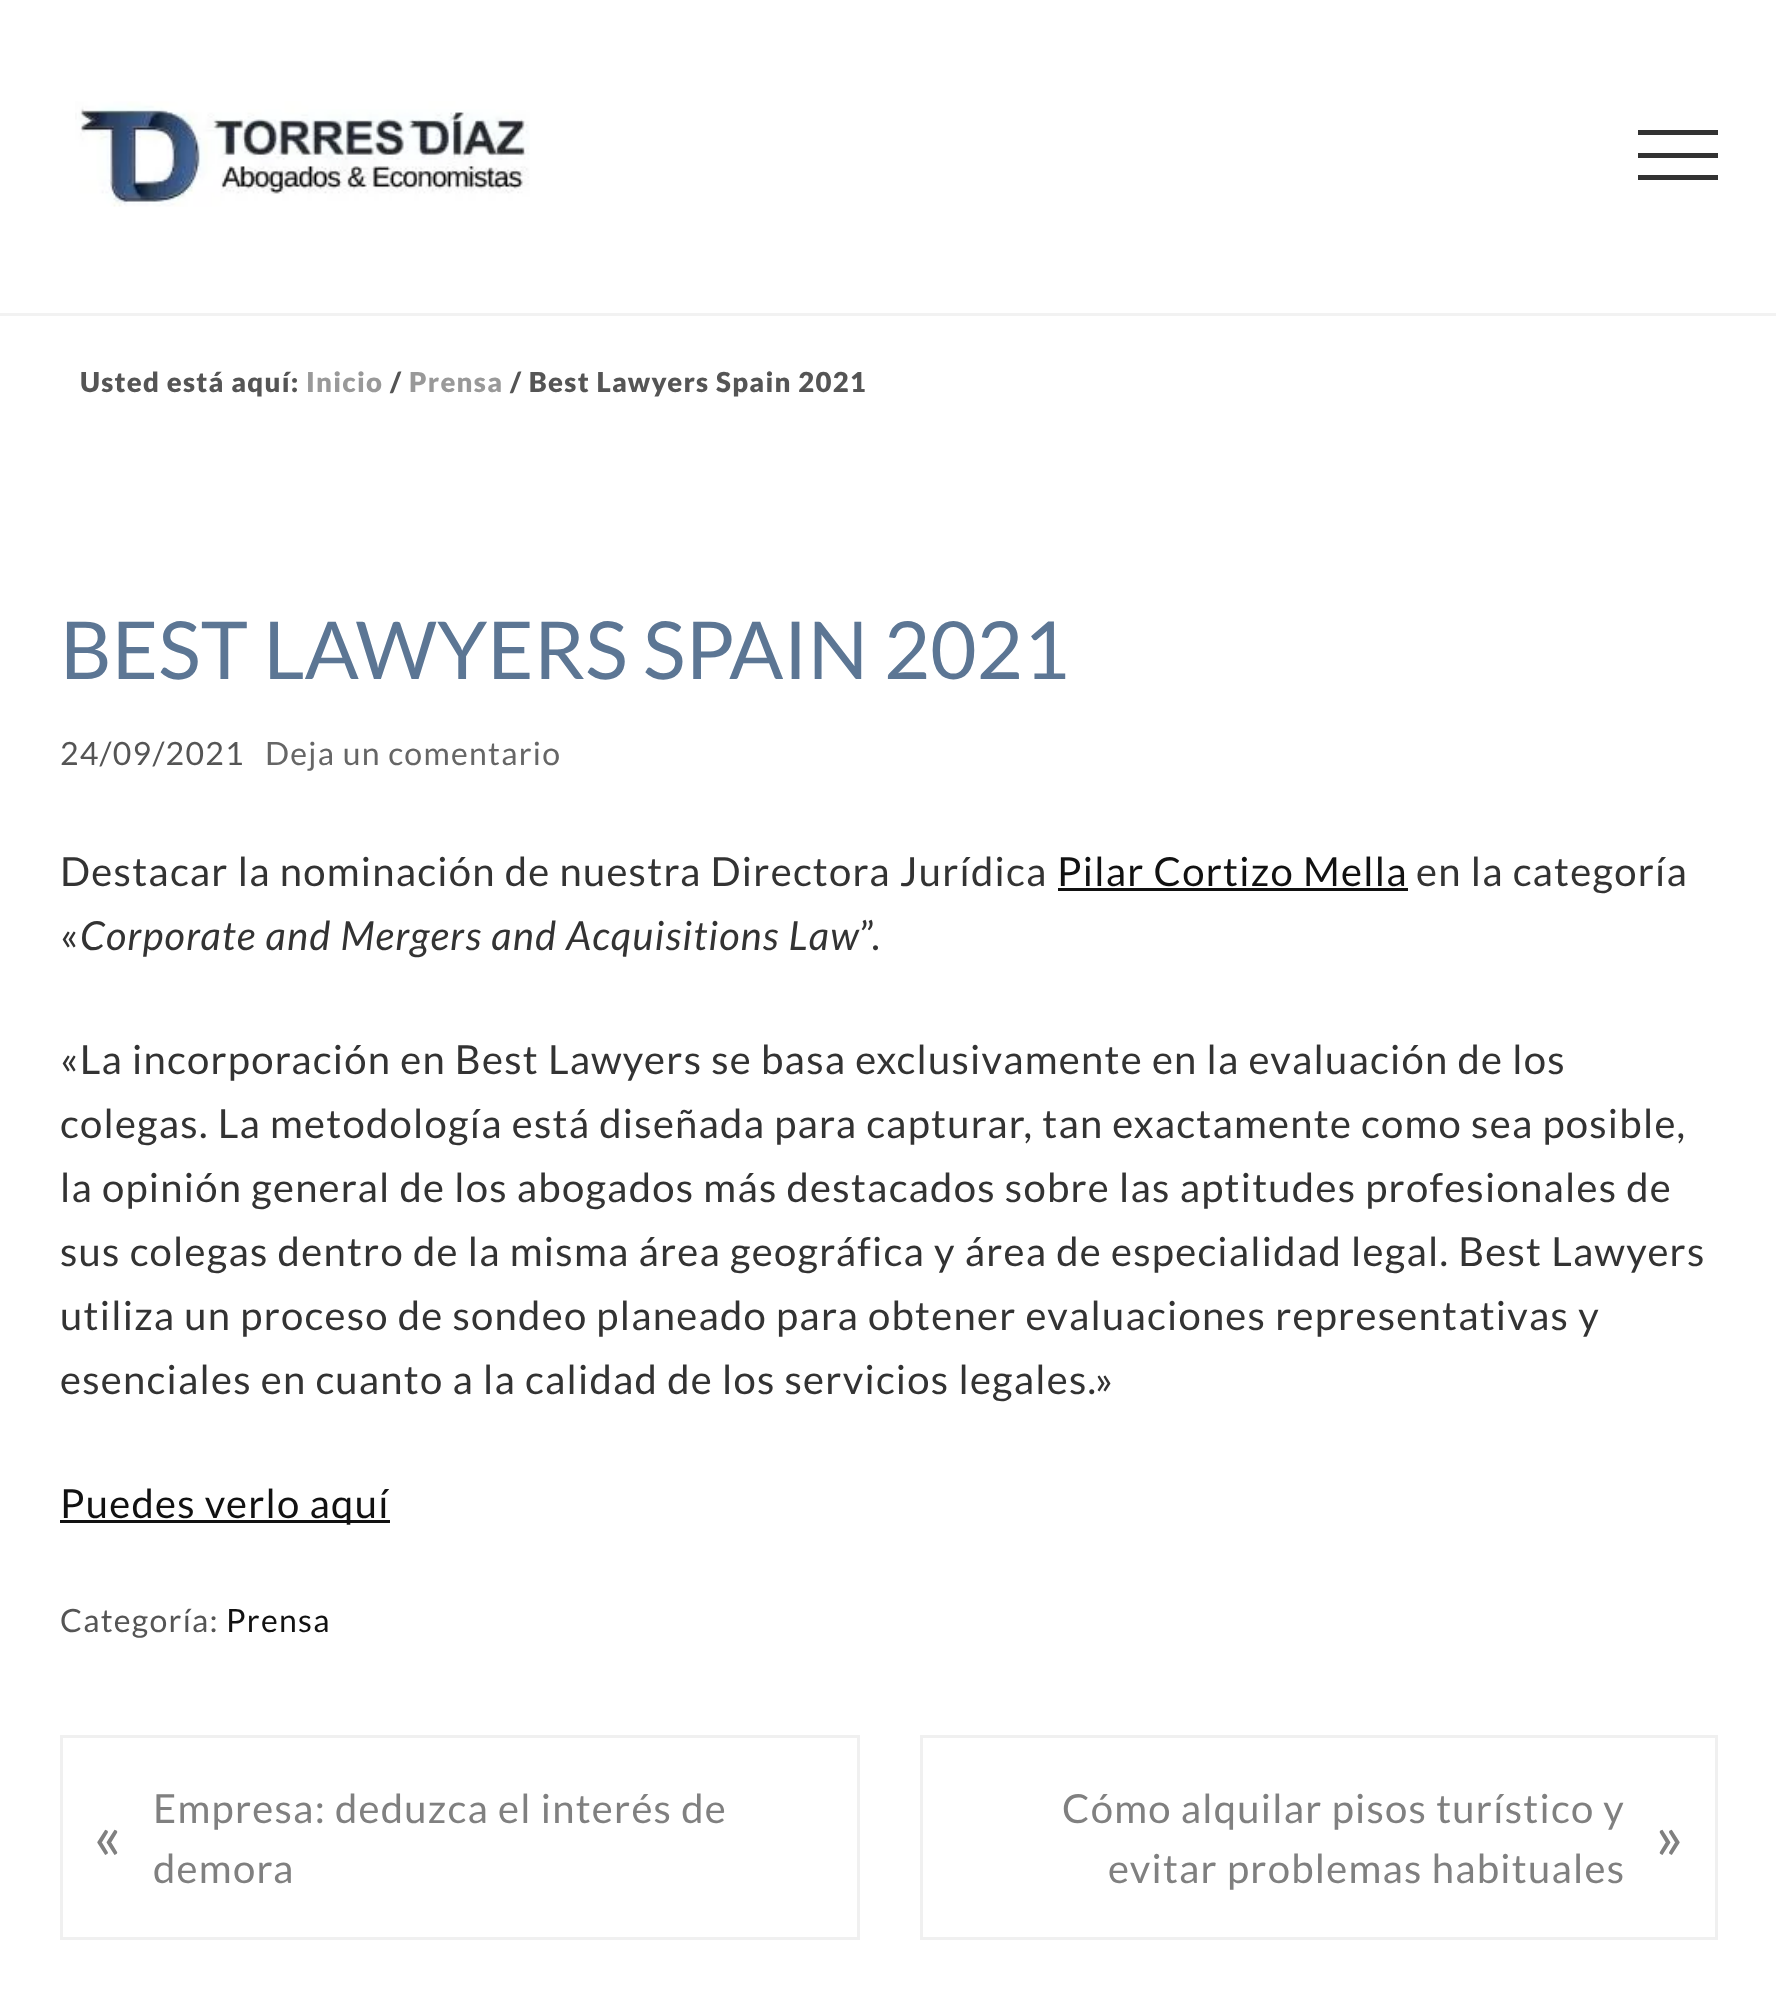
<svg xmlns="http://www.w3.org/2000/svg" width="1776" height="2001">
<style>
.a{font:900 27.5px Lato;letter-spacing:1.25px;fill:#555}
.b{font:900 27.5px Lato;letter-spacing:1.25px;fill:#999}
.c{font:80px Lato;fill:#5c7694}
.d{font:32px Lato;letter-spacing:1.25px;fill:#555}
.e{font:32px Lato;letter-spacing:1.25px;fill:#666}
.f{font:40px Lato;letter-spacing:1.25px;fill:#333}
.g{font:40px Lato;letter-spacing:1.25px;fill:#111}
.h{font:italic 40px Lato;letter-spacing:1.25px;fill:#333}
.i{font:32px Lato;letter-spacing:1.25px;fill:#111}
.j{font:40px Lato;letter-spacing:1.25px;fill:#808080}
.k{font:63px Lato;letter-spacing:1.25px;fill:#808080}
</style>
<rect width="100%" height="100%" fill="#fff"/>
<path fill="#f2f2f2" d="M0 313h1776v3H0z"/>
<image href="1.png" x="75" y="101" width="455" height="106"/>
<path fill="#323232" d="M1638 153h80v5H1638z"/>
<path fill="#323232" d="M1638 130h80v5H1638z"/>
<path fill="#323232" d="M1638 175h80v5H1638z"/>
<path fill="#111" d="M1058 888h350v3H1058z"/>
<path fill="#111" d="M60 1520h330v3H60z"/>
<path fill="none" stroke="#f0f0f0" stroke-width="3" d="M61.5 1736.5h797v202H61.5z"/>
<path fill="none" stroke="#f0f0f0" stroke-width="3" d="M921.5 1736.5h795v202H921.5z"/>
<text class="a" x="80" y="392">Usted está aquí:</text>
<text class="b" x="306" y="392">Inicio</text>
<text class="a" x="390" y="392">/</text>
<text class="b" x="409" y="392">Prensa</text>
<text class="a" x="510" y="392">/ Best Lawyers Spain 2021</text>
<text class="c" x="60" y="679">BEST LAWYERS SPAIN 2021</text>
<text class="d" x="60" y="765">24/09/2021</text>
<text class="e" x="265" y="765">Deja un comentario</text>
<text class="f" x="60" y="886">Destacar la nominación de nuestra Directora Jurídica</text>
<text class="g" x="1057" y="886">Pilar Cortizo Mella</text>
<text class="f" x="1416" y="886">en la categoría</text>
<text class="f" x="60" y="950">«</text>
<text class="h" x="80" y="950">Corporate and Mergers and Acquisitions Law</text>
<text class="f" x="860" y="950">”.</text>
<text class="f" x="60" y="1074">«La incorporación en Best Lawyers se basa exclusivamente en la evaluación de los</text>
<text class="f" x="60" y="1138">colegas. La metodología está diseñada para capturar, tan exactamente como sea posible,</text>
<text class="f" x="60" y="1202">la opinión general de los abogados más destacados sobre las aptitudes profesionales de</text>
<text class="f" x="60" y="1266">sus colegas dentro de la misma área geográfica y área de especialidad legal. Best Lawyers</text>
<text class="f" x="60" y="1330">utiliza un proceso de sondeo planeado para obtener evaluaciones representativas y</text>
<text class="f" x="60" y="1394">esenciales en cuanto a la calidad de los servicios legales.»</text>
<text class="g" x="60" y="1518">Puedes verlo aquí</text>
<text class="d" x="60" y="1632">Categoría:</text>
<text class="i" x="226" y="1632">Prensa</text>
<text class="j" x="153" y="1823">Empresa: deduzca el interés de</text>
<text class="k" x="93" y="1859">«</text>
<text class="j" x="153" y="1883">demora</text>
<text class="j" x="1062" y="1823">Cómo alquilar pisos turístico y</text>
<text class="k" x="1655" y="1859">»</text>
<text class="j" x="1108" y="1883">evitar problemas habituales</text>
</svg>
